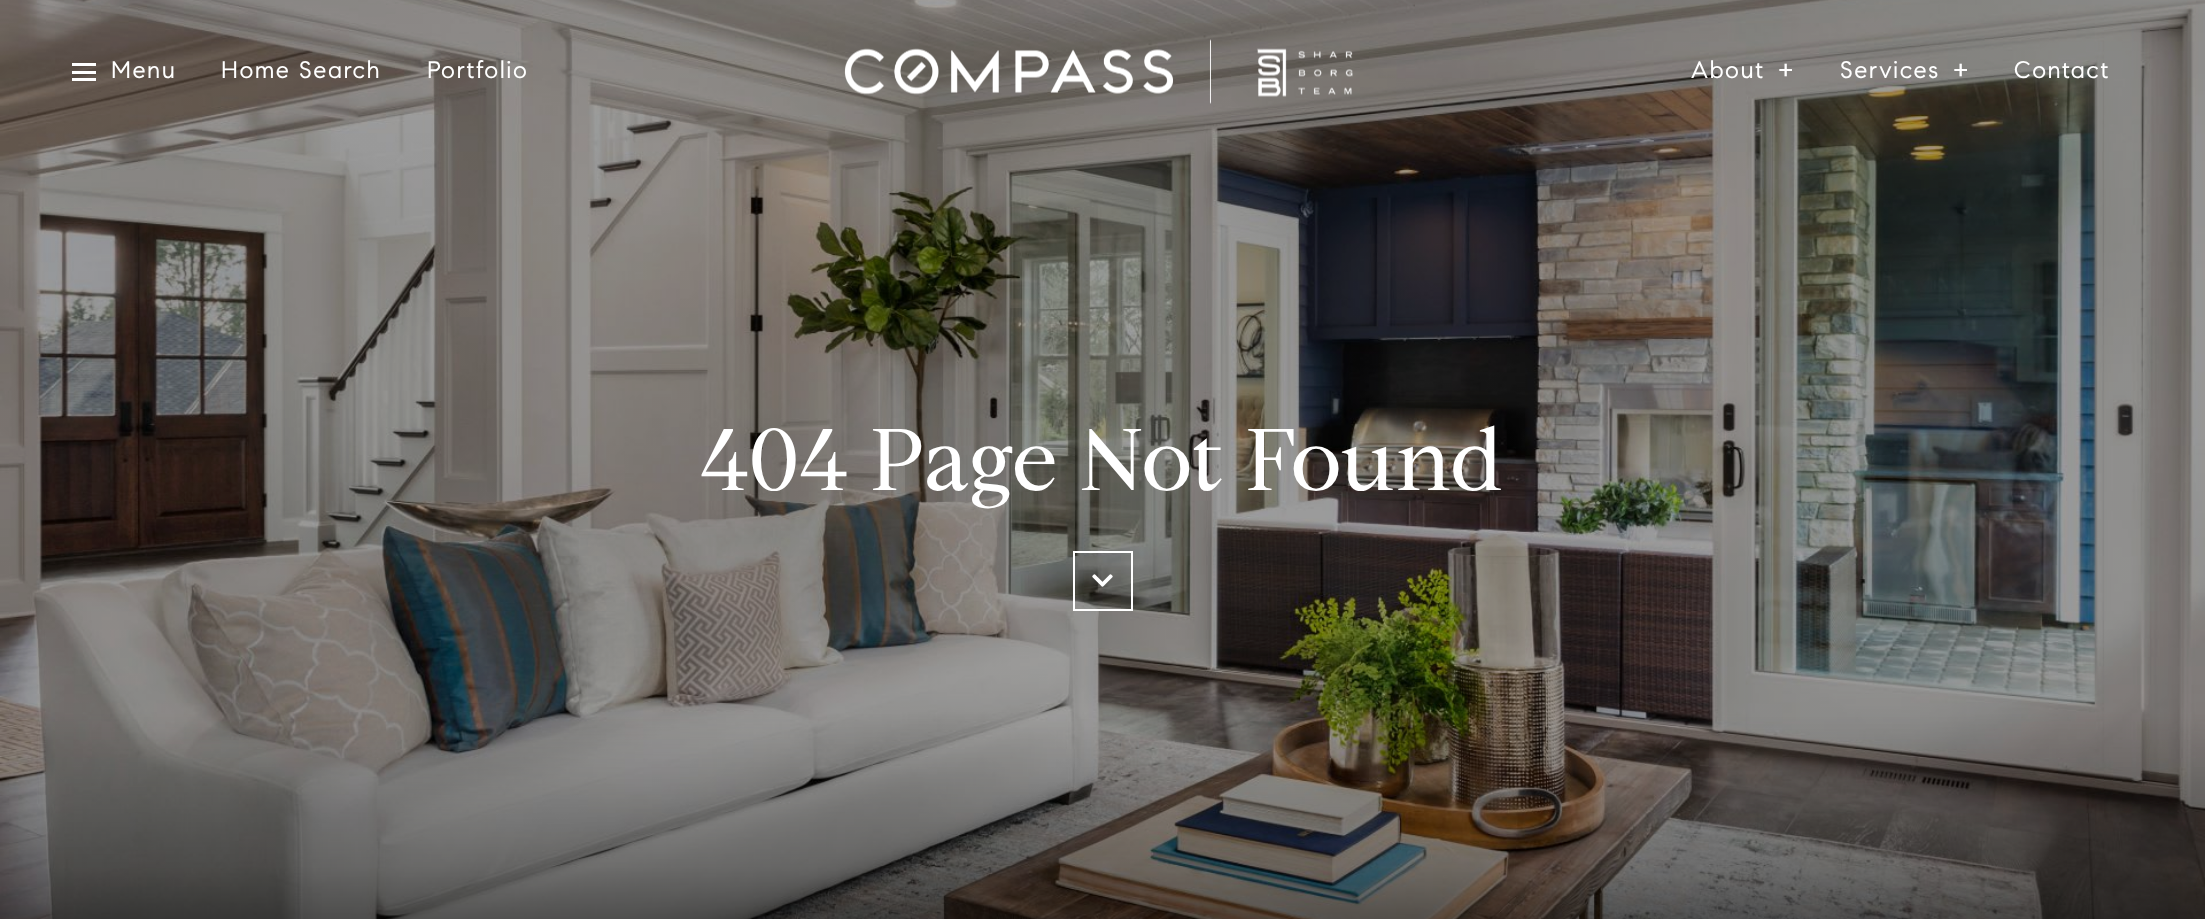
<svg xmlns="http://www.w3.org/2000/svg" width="2205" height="919">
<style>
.a{font:24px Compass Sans;letter-spacing:1.5px;fill:#fff}
.b{font:27px Compass Sans;letter-spacing:1.5px;fill:#fff}
.c{font:87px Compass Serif;letter-spacing:1.5px;fill:#fff}
</style>
<rect width="100%" height="100%" fill="#fff"/>
<image href="2.png" x="0" y="0" width="2205" height="919"/>
<path fill="#fff" d="M72 71h24v3H72z"/>
<path fill="#fff" d="M72 63h24v3H72z"/>
<path fill="#fff" d="M72 78h24v3H72z"/>
<image href="1.png" x="844" y="39" width="509" height="65"/>
<path fill="none" stroke="#fff" stroke-width="2" d="M1074 552h58v58H1074z"/>
<image href="3.png" x="1092" y="574" width="21" height="13"/>
<text class="a" x="111" y="78">Menu</text>
<text class="a" x="221" y="78">Home Search</text>
<text class="a" x="427" y="78">Portfolio</text>
<text class="a" x="1691" y="78">About</text>
<text class="b" x="1778" y="78">+</text>
<text class="a" x="1840" y="78">Services</text>
<text class="b" x="1953" y="78">+</text>
<text class="a" x="2014" y="78">Contact</text>
<text class="c" x="700" y="490">404 Page Not Found</text>
</svg>
